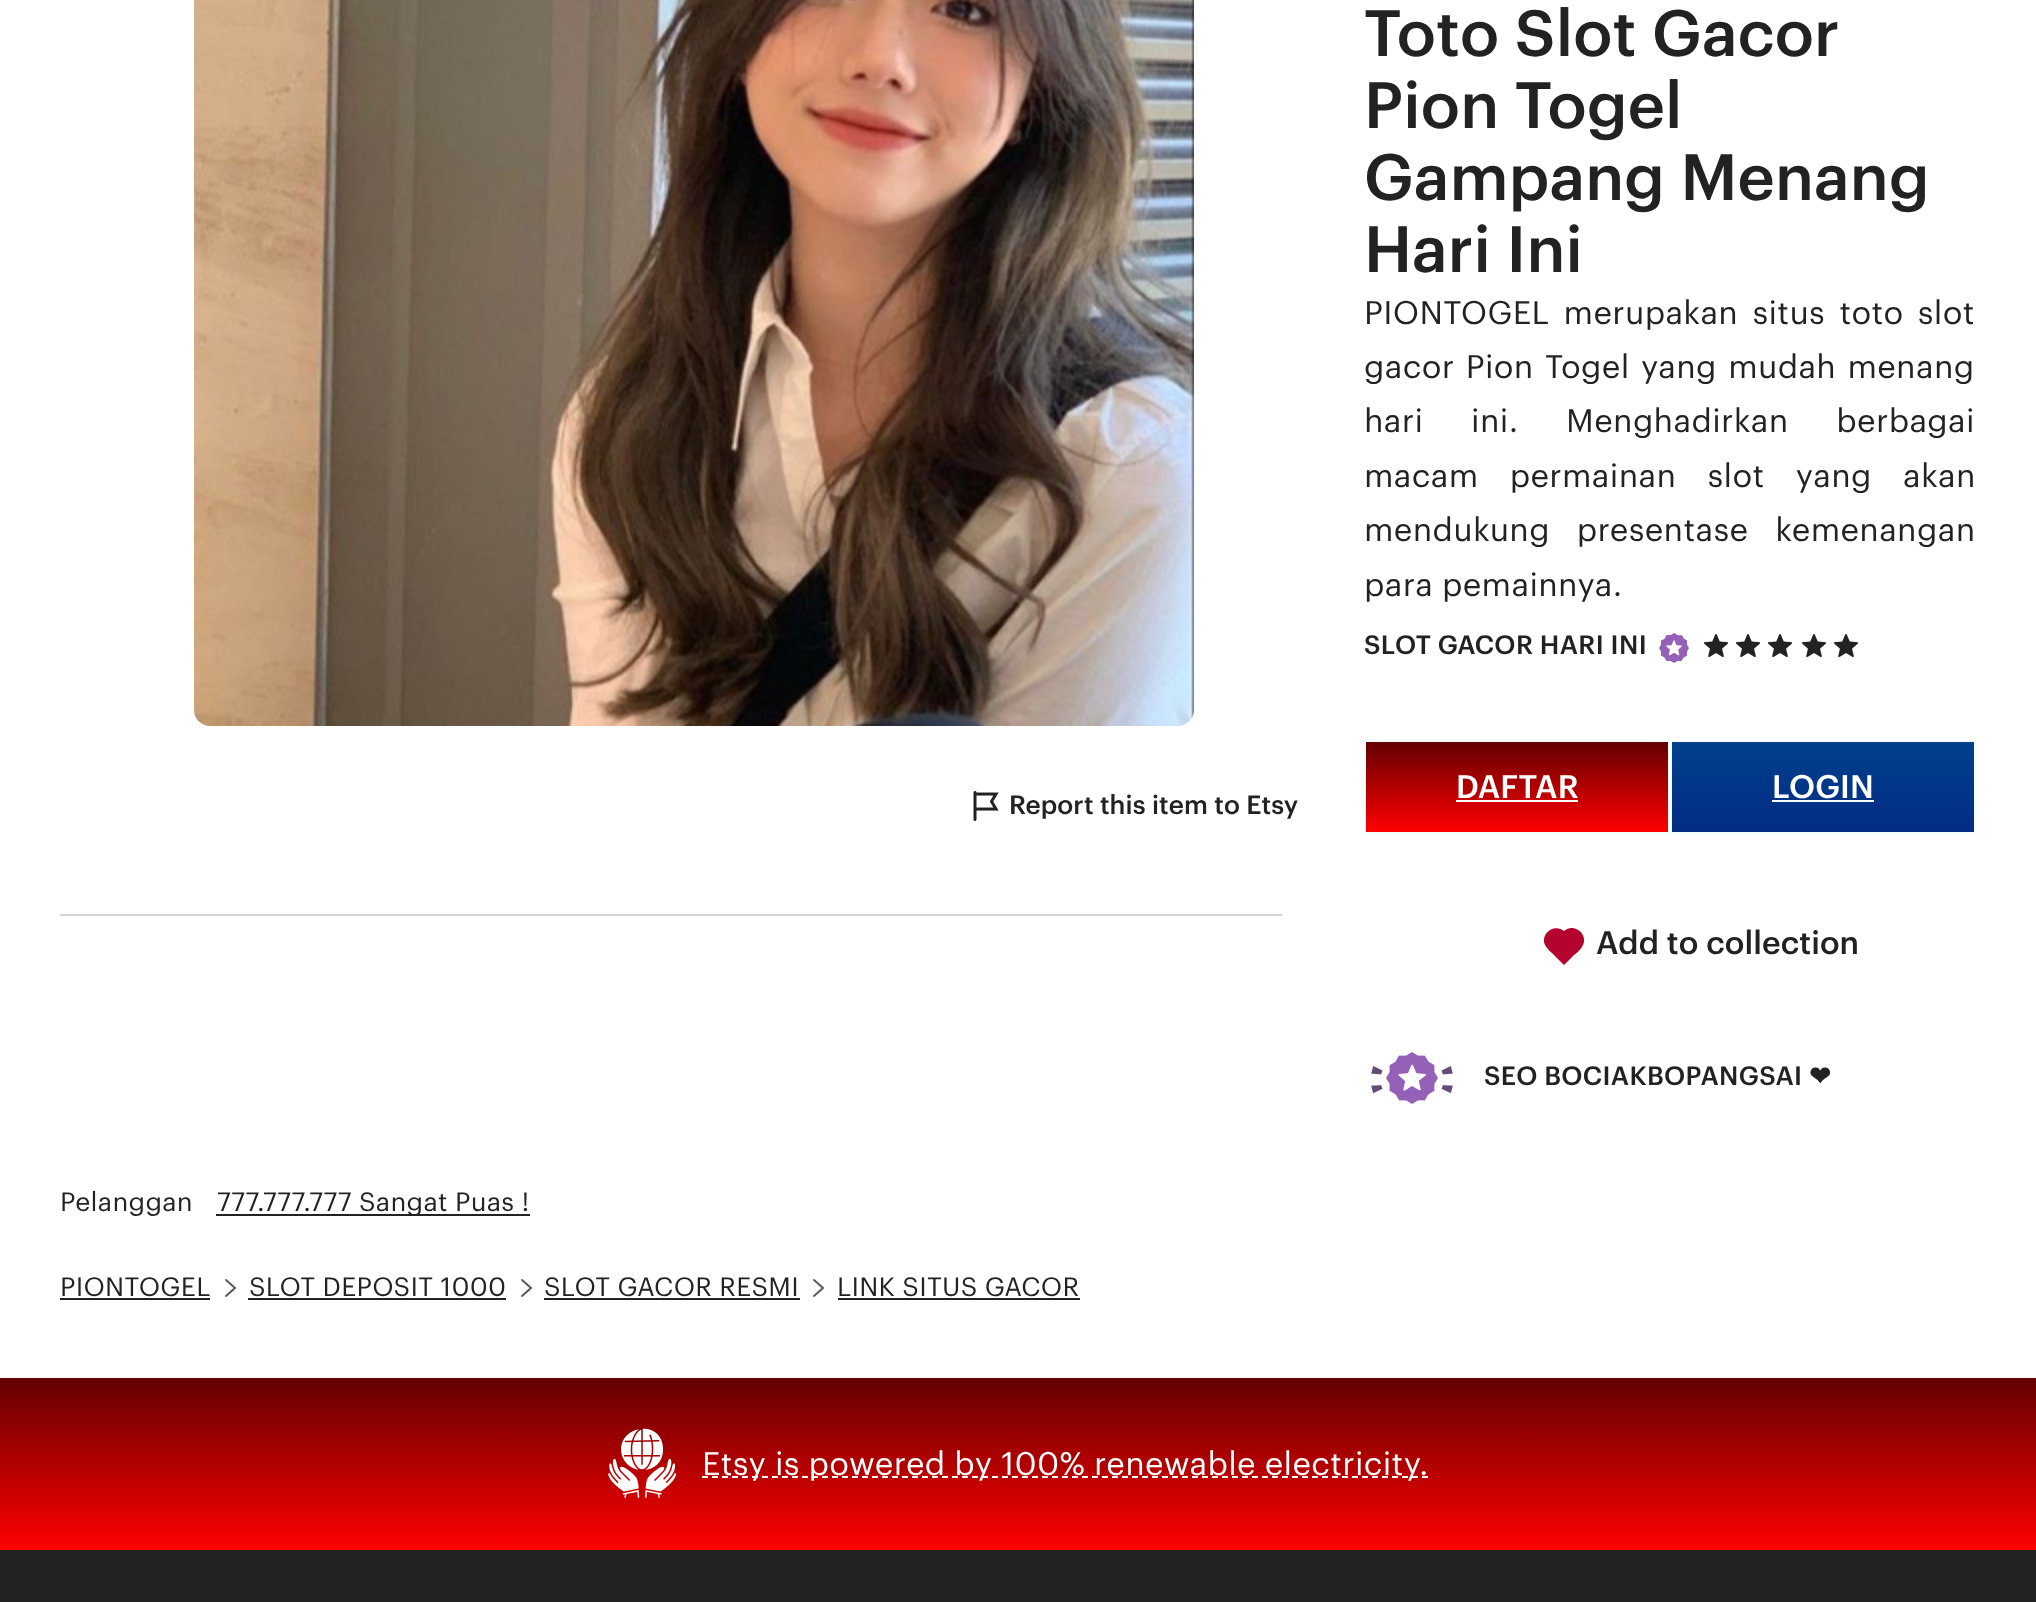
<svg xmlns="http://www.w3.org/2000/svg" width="2036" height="1602">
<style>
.a{font:500 26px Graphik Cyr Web;fill:#222}
.b{font:500 64px Graphik Cyr Web;fill:#222}
.c{font:32px Graphik Cyr Web;letter-spacing:0.3px;fill:#222}
.d{font:500 26px Graphik Cyr Web;letter-spacing:0.25px;fill:#222}
.e{font:500 32px Graphik Cyr Web;fill:#fff}
.f{font:500 32px Graphik Cyr Web;fill:#222}
.g{font:bold 26px DejaVu Sans;letter-spacing:0.25px;fill:#222}
.h{font:26px Graphik Cyr Web;letter-spacing:0.25px;fill:#222}
.i{font:32px Graphik Cyr Web;letter-spacing:0.3px;fill:#fff}
</style>
<defs>
<linearGradient id="g1" gradientUnits="userSpaceOnUse" x1="1517" y1="742" x2="1517" y2="832"><stop offset="0" stop-color="#640000"/><stop offset="1" stop-color="#f00"/></linearGradient>
<linearGradient id="g2" gradientUnits="userSpaceOnUse" x1="1823" y1="742" x2="1823" y2="832"><stop offset="0" stop-color="#00408c"/><stop offset="1" stop-color="#042c84"/></linearGradient>
<linearGradient id="g3" gradientUnits="userSpaceOnUse" x1="1018" y1="1378" x2="1018" y2="1550"><stop offset="0" stop-color="#640000"/><stop offset="1" stop-color="#f00"/></linearGradient>
</defs>
<rect width="100%" height="100%" fill="#fff"/>
<path fill="#d4d4d4" d="M60 914h1222v2H60z"/>
<image href="1.png" x="194" y="0" width="1000" height="726"/>
<image href="2.png" x="973" y="791" width="26" height="30"/>
<image href="3.png" x="1659" y="633" width="30" height="30"/>
<image href="4.png" x="1704" y="634" width="24" height="24"/>
<image href="4.png" x="1736" y="634" width="24" height="24"/>
<image href="4.png" x="1768" y="634" width="24" height="24"/>
<image href="4.png" x="1802" y="634" width="24" height="24"/>
<image href="4.png" x="1834" y="634" width="24" height="24"/>
<path fill="url(#g1)" d="M1366 742h302v90H1366z"/>
<path fill="none" stroke="#f4feff" stroke-width="2" d="M1365 741h304v92H1365z"/>
<path fill="#fff" d="M1456 800h122v2H1456z"/>
<path fill="url(#g2)" d="M1672 742h302v90H1672z"/>
<path fill="none" stroke="#f4feff" stroke-width="2" d="M1671 741h304v92H1671z"/>
<path fill="#fff" d="M1772 800h102v2H1772z"/>
<path fill="#b50330" d="M1582 947c-2 3-5 6-8 8l-10 10l-10-10c-3-3-7-6-9-10c-5-12 10-22 19-14c10-9 26 4 18 16"/>
<image href="5.png" x="1371" y="1052" width="82" height="52"/>
<path fill="#222" d="M216 1214h314v2H216z"/>
<path fill="#222" d="M60 1298h150v2H60z"/>
<image href="6.png" x="225" y="1279" width="12" height="18"/>
<path fill="#222" d="M248 1298h258v2H248z"/>
<image href="6.png" x="521" y="1279" width="12" height="18"/>
<path fill="#222" d="M544 1298h256v2H544z"/>
<image href="6.png" x="813" y="1279" width="12" height="18"/>
<path fill="#222" d="M838 1298h242v2H838z"/>
<path fill="url(#g3)" d="M0 1378h2036v172H0z"/>
<image href="7.png" x="608" y="1428" width="68" height="70"/>
<path fill="none" stroke="#fff" stroke-width="2" stroke-dasharray="6 4" d="M702 1477h728"/>
<path fill="#222" d="M0 1550h2036v52H0z"/>
<text class="a" x="1009" y="814">Report this item to Etsy</text>
<text class="b" x="1364" y="56">Toto Slot Gacor</text>
<text class="b" x="1364" y="128">Pion Togel</text>
<text class="b" x="1364" y="200">Gampang Menang</text>
<text class="b" x="1364" y="272">Hari Ini</text>
<text class="c" x="1364" y="324" word-spacing="5.5">PIONTOGEL merupakan situs toto slot</text>
<text class="c" x="1364" y="378" word-spacing="2.5">gacor Pion Togel yang mudah menang</text>
<text class="c" x="1364" y="432" word-spacing="39">hari ini. Menghadirkan berbagai</text>
<text class="c" x="1364" y="487" word-spacing="22.5">macam permainan slot yang akan</text>
<text class="c" x="1364" y="541" word-spacing="18">mendukung presentase kemenangan</text>
<text class="c" x="1364" y="596">para pemainnya.</text>
<text class="d" x="1364" y="654">SLOT GACOR HARI INI</text>
<text class="e" x="1456" y="798">DAFTAR</text>
<text class="e" x="1772" y="798">LOGIN</text>
<text class="f" x="1596" y="954">Add to collection</text>
<text class="d" x="1484" y="1085">SEO BOCIAKBOPANGSAI</text>
<text class="g" x="1809" y="1085">❤︎</text>
<text class="h" x="60" y="1211">Pelanggan</text>
<text class="h" x="217" y="1211">777.777.777 Sangat Puas !</text>
<text class="h" x="60" y="1296">PIONTOGEL</text>
<text class="h" x="249" y="1296">SLOT DEPOSIT 1000</text>
<text class="h" x="544" y="1296">SLOT GACOR RESMI</text>
<text class="h" x="837" y="1296">LINK SITUS GACOR</text>
<text class="i" x="702" y="1475">Etsy is powered by 100% renewable electricity.</text>
</svg>
